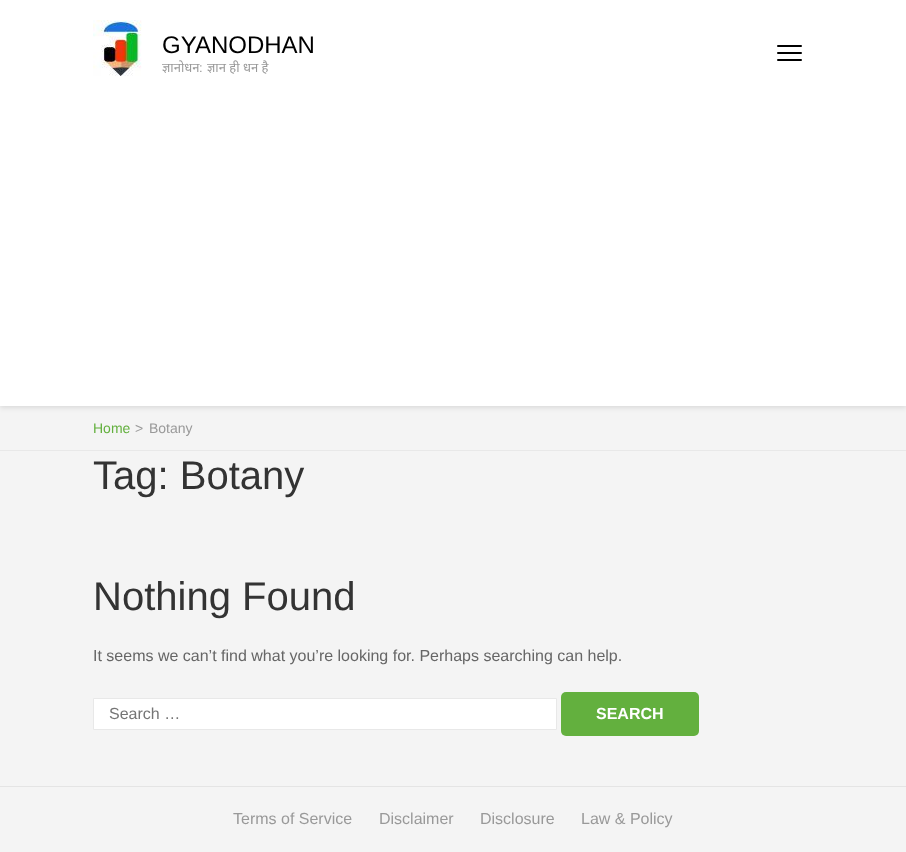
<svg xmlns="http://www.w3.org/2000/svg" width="906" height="852">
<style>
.a{font:24px Liberation Sans;fill:#000}
.b{font:13px Noto Sans;fill:#999}
.c{font:13px Liberation Sans;fill:#999}
.d{font:14px Liberation Sans;fill:#63b03e}
.e{font:14px Liberation Sans;fill:#999}
.f{font:40px Liberation Sans;fill:#333}
.g{font:16px Liberation Sans;fill:#666}
.h{font:16px Liberation Sans;fill:#757575}
.i{font:bold 16px Liberation Sans;fill:#fff}
.j{font:16px Liberation Sans;fill:#999}
</style>
<rect width="100%" height="100%" fill="#f4f4f4"/>
<path fill="#0000001a" filter="blur(2.5px)" d="M0 2h906v406H0z"/>
<path fill="#fff" d="M0 0h906v406H0z"/>
<image href="1.png" x="93" y="20" width="49" height="56"/>
<rect fill="#000" x="777" y="45" width="25" height="2" rx="1"/>
<rect fill="#000" x="777" y="52" width="25" height="2" rx="1"/>
<rect fill="#000" x="777" y="59" width="25" height="2" rx="1"/>
<path fill="#e8e8e8" d="M0 450h906v1H0z"/>
<path fill="#fff" stroke="#e8e8e8" d="M93.5 698.5h463v31H93.5z"/>
<rect fill="#63b03e" x="561" y="692" width="138" height="44" rx="5"/>
<path fill="#e4e4e4" d="M0 786h906v1H0z"/>
<text class="a" x="162" y="53">GYANODHAN</text>
<text class="b" x="162" y="72">ज्ञानोधन</text>
<text class="c" x="199" y="72">:</text>
<text class="b" x="207" y="72">ज्ञान ही धन है</text>
<text class="d" x="93" y="433">Home</text>
<text class="e" x="135" y="433">&gt;</text>
<text class="e" x="149" y="433">Botany</text>
<text class="f" x="93" y="489">Tag: Botany</text>
<text class="f" x="93" y="610">Nothing Found</text>
<text class="g" x="93" y="661">It seems we can’t find what you’re looking for. Perhaps searching can help.</text>
<text class="h" x="109" y="719">Search …</text>
<text class="i" x="596" y="719">SEARCH</text>
<text class="j" x="233" y="824">Terms of Service</text>
<text class="j" x="379" y="824">Disclaimer</text>
<text class="j" x="480" y="824">Disclosure</text>
<text class="j" x="581" y="824">Law &amp; Policy</text>
</svg>
